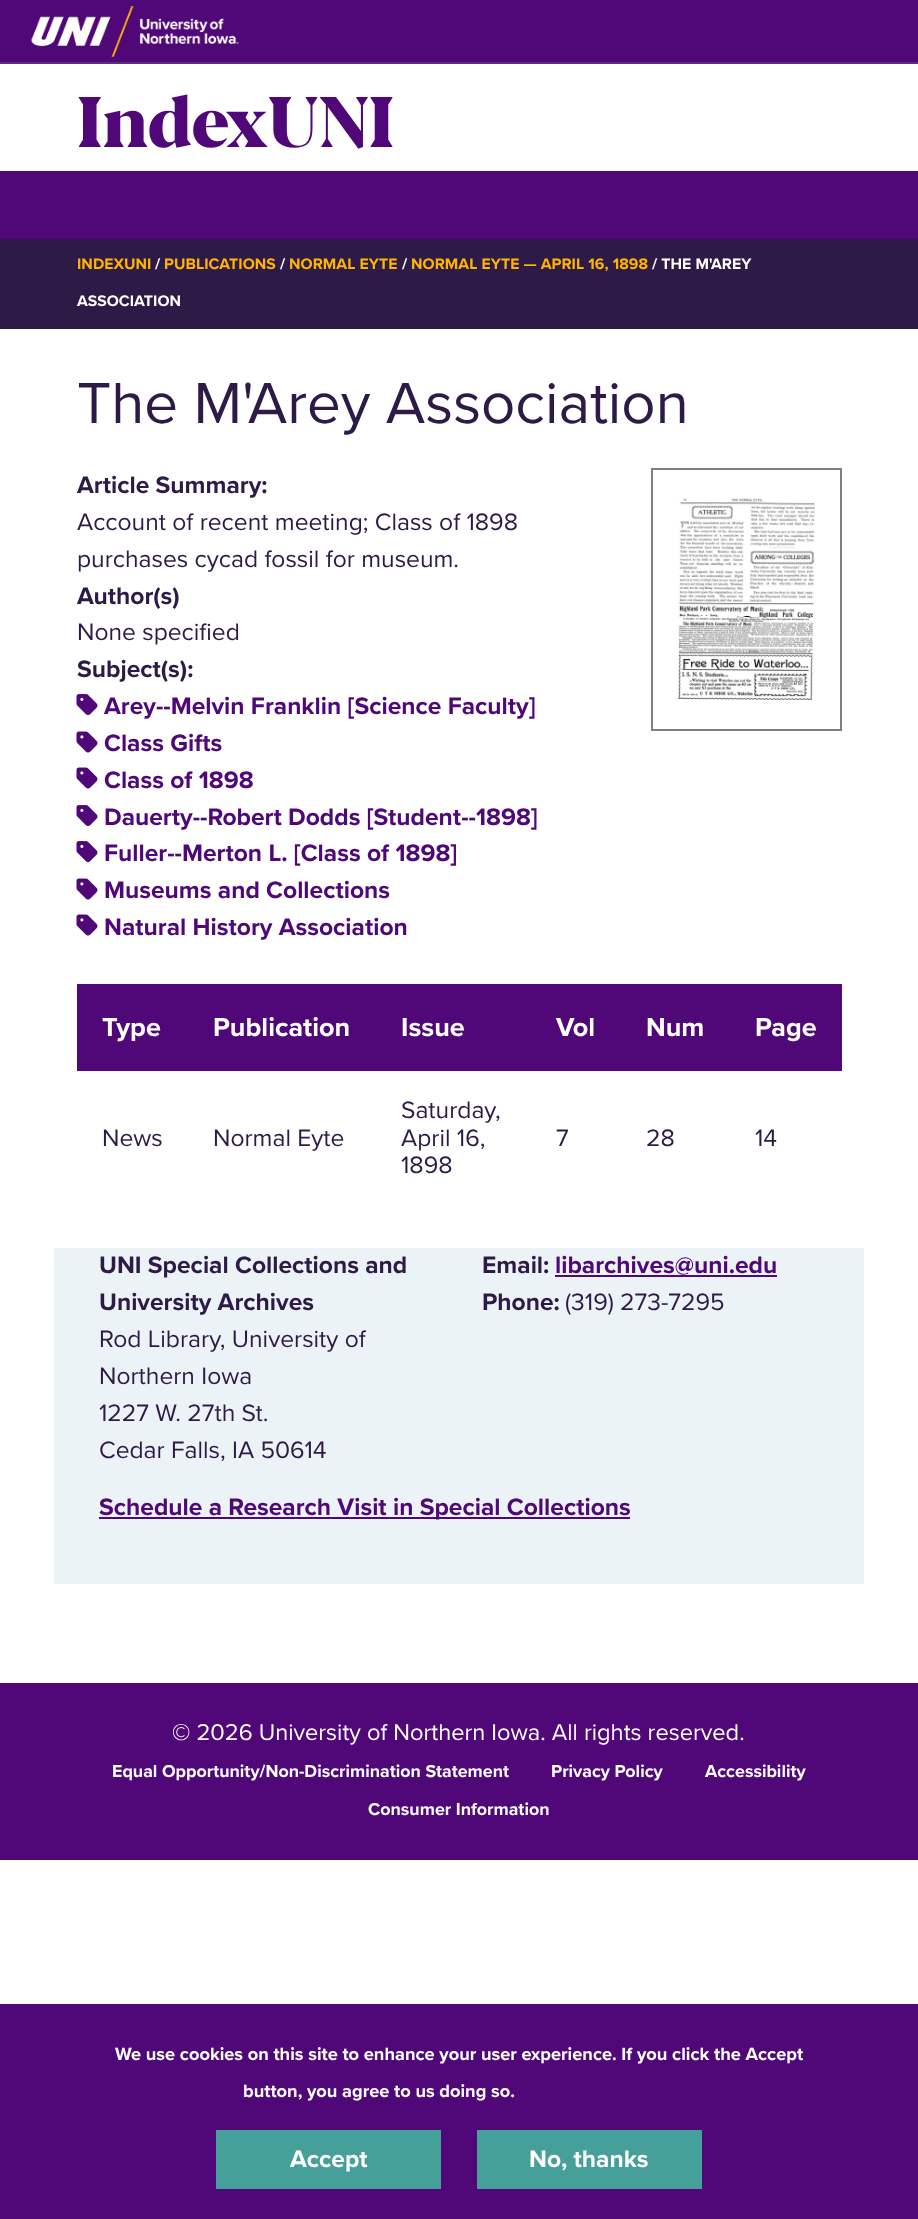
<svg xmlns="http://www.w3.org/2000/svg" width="918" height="2219">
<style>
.a{font:900 71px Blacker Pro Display;fill:#500778}
.b{font:bold 15.75px Proxima Nova;letter-spacing:0.05px;fill:#ffb500}
.c{font:bold 15.75px Proxima Nova;letter-spacing:0.05px;fill:#fff}
.d{font:60px Proxima Nova;fill:#2e1a47}
.e{font:bold 24.6px Proxima Nova;fill:#2e1a47}
.f{font:24.6px Proxima Nova;fill:#2e1a47}
.g{font:bold 24.6px Proxima Nova;fill:#500778}
.h{font:bold 27px Proxima Nova;fill:#fff}
.i{font:23.6px Proxima Nova;fill:#fff}
.j{font:bold 17.85px Proxima Nova;fill:#fff}
.k{font:bold 18.25px Proxima Nova;fill:#fff}
.l{font:bold 24.6px Proxima Nova;fill:#fff}
</style>
<rect width="100%" height="100%" fill="#fff"/>
<path fill="#500778" d="M0 0h918v62H0z"/>
<path fill="#602c7e" d="M0 62h918v2H0z"/>
<image href="1.png" x="31" y="6" width="208" height="51"/>
<path fill="#500778" d="M0 171h918v68H0z"/>
<path fill="#2e1a47" d="M0 239h918v90H0z"/>
<path fill="none" stroke="#808080" stroke-width="2" d="M652 469h189v261H652z"/>
<image href="2.png" x="678" y="498" width="137" height="202"/>
<image href="3.png" x="76" y="694" width="22" height="21"/>
<image href="4.png" x="76" y="731" width="22" height="22"/>
<image href="4.png" x="76" y="767" width="22" height="22"/>
<image href="3.png" x="76" y="805" width="22" height="21"/>
<image href="3.png" x="76" y="841" width="22" height="21"/>
<image href="4.png" x="76" y="878" width="22" height="22"/>
<image href="4.png" x="76" y="914" width="22" height="22"/>
<path fill="#500778" d="M77 984h765v87H77z"/>
<path fill="#ecf3f7" d="M54 1248h810v336H54z"/>
<path fill="#500778" d="M555 1275h222v2H555z"/>
<path fill="#500778" d="M99 1517h531v2H99z"/>
<path fill="#500778" d="M0 1683h918v177H0z"/>
<path fill="#500778" d="M0 2004h918v215H0z"/>
<path fill="#46a09a" d="M216 2130h225v59H216z"/>
<path fill="#46a09a" d="M477 2130h225v59H477z"/>
<text class="a" x="77" y="147">IndexUNI</text>
<text class="b" x="77" y="269">INDEXUNI</text>
<text class="c" x="155" y="269">/</text>
<text class="b" x="164" y="269">PUBLICATIONS</text>
<text class="c" x="280" y="269">/</text>
<text class="b" x="289" y="269">NORMAL EYTE</text>
<text class="c" x="402" y="269">/</text>
<text class="b" x="411" y="269">NORMAL EYTE — APRIL 16, 1898</text>
<text class="c" x="652" y="269">/ THE M'AREY</text>
<text class="c" x="77" y="306">ASSOCIATION</text>
<text class="d" x="77" y="423">The M'Arey Association</text>
<text class="e" x="77" y="493">Article Summary:</text>
<text class="f" x="77" y="530">Account of recent meeting; Class of 1898</text>
<text class="f" x="77" y="567">purchases cycad fossil for museum.</text>
<text class="e" x="77" y="604">Author(s)</text>
<text class="f" x="77" y="640">None specified</text>
<text class="e" x="77" y="677">Subject(s):</text>
<text class="g" x="104" y="714">Arey--Melvin Franklin [Science Faculty]</text>
<text class="g" x="104" y="751">Class Gifts</text>
<text class="g" x="104" y="788">Class of 1898</text>
<text class="g" x="104" y="825">Dauerty--Robert Dodds [Student--1898]</text>
<text class="g" x="104" y="861">Fuller--Merton L. [Class of 1898]</text>
<text class="g" x="104" y="898">Museums and Collections</text>
<text class="g" x="104" y="935">Natural History Association</text>
<text class="h" x="102" y="1036">Type</text>
<text class="h" x="213" y="1036">Publication</text>
<text class="h" x="401" y="1036">Issue</text>
<text class="h" x="556" y="1036">Vol</text>
<text class="h" x="646" y="1036">Num</text>
<text class="h" x="755" y="1036">Page</text>
<text class="f" x="102" y="1146">News</text>
<text class="f" x="213" y="1146">Normal Eyte</text>
<text class="f" x="401" y="1118">Saturday,</text>
<text class="f" x="401" y="1146">April 16,</text>
<text class="f" x="401" y="1173">1898</text>
<text class="f" x="556" y="1146">7</text>
<text class="f" x="646" y="1146">28</text>
<text class="f" x="755" y="1146">14</text>
<text class="e" x="99" y="1273">UNI Special Collections and</text>
<text class="e" x="99" y="1310">University Archives</text>
<text class="f" x="99" y="1347">Rod Library, University of</text>
<text class="f" x="99" y="1384">Northern Iowa</text>
<text class="f" x="99" y="1421">1227 W. 27th St.</text>
<text class="f" x="99" y="1458">Cedar Falls, IA 50614</text>
<text class="e" x="482" y="1273">E‌mail:</text>
<text class="g" x="555" y="1273">libarchives@uni.edu</text>
<text class="e" x="482" y="1310">Phone:</text>
<text class="f" x="565" y="1310">(319) 273-7295</text>
<text class="g" x="99" y="1515">‌Schedule a Research Visit in Special Collections</text>
<text class="i" x="172" y="1740">© 2026 University of Northern Iowa. All rights reserved.</text>
<text class="j" x="112" y="1777">Equal Opportunity/Non-Discrimination Statement</text>
<text class="j" x="551" y="1777">Privacy Policy</text>
<text class="j" x="705" y="1777">Accessibility</text>
<text class="j" x="368" y="1815">Consumer Information</text>
<text class="k" x="115" y="2060">We use cookies on this site to enhance your user experience. If you click the Accept</text>
<text class="k" x="243" y="2097">button, you agree to us doing so.</text>
<text class="l" x="290" y="2167">Accept</text>
<text class="l" x="529" y="2167">No, thanks</text>
</svg>
